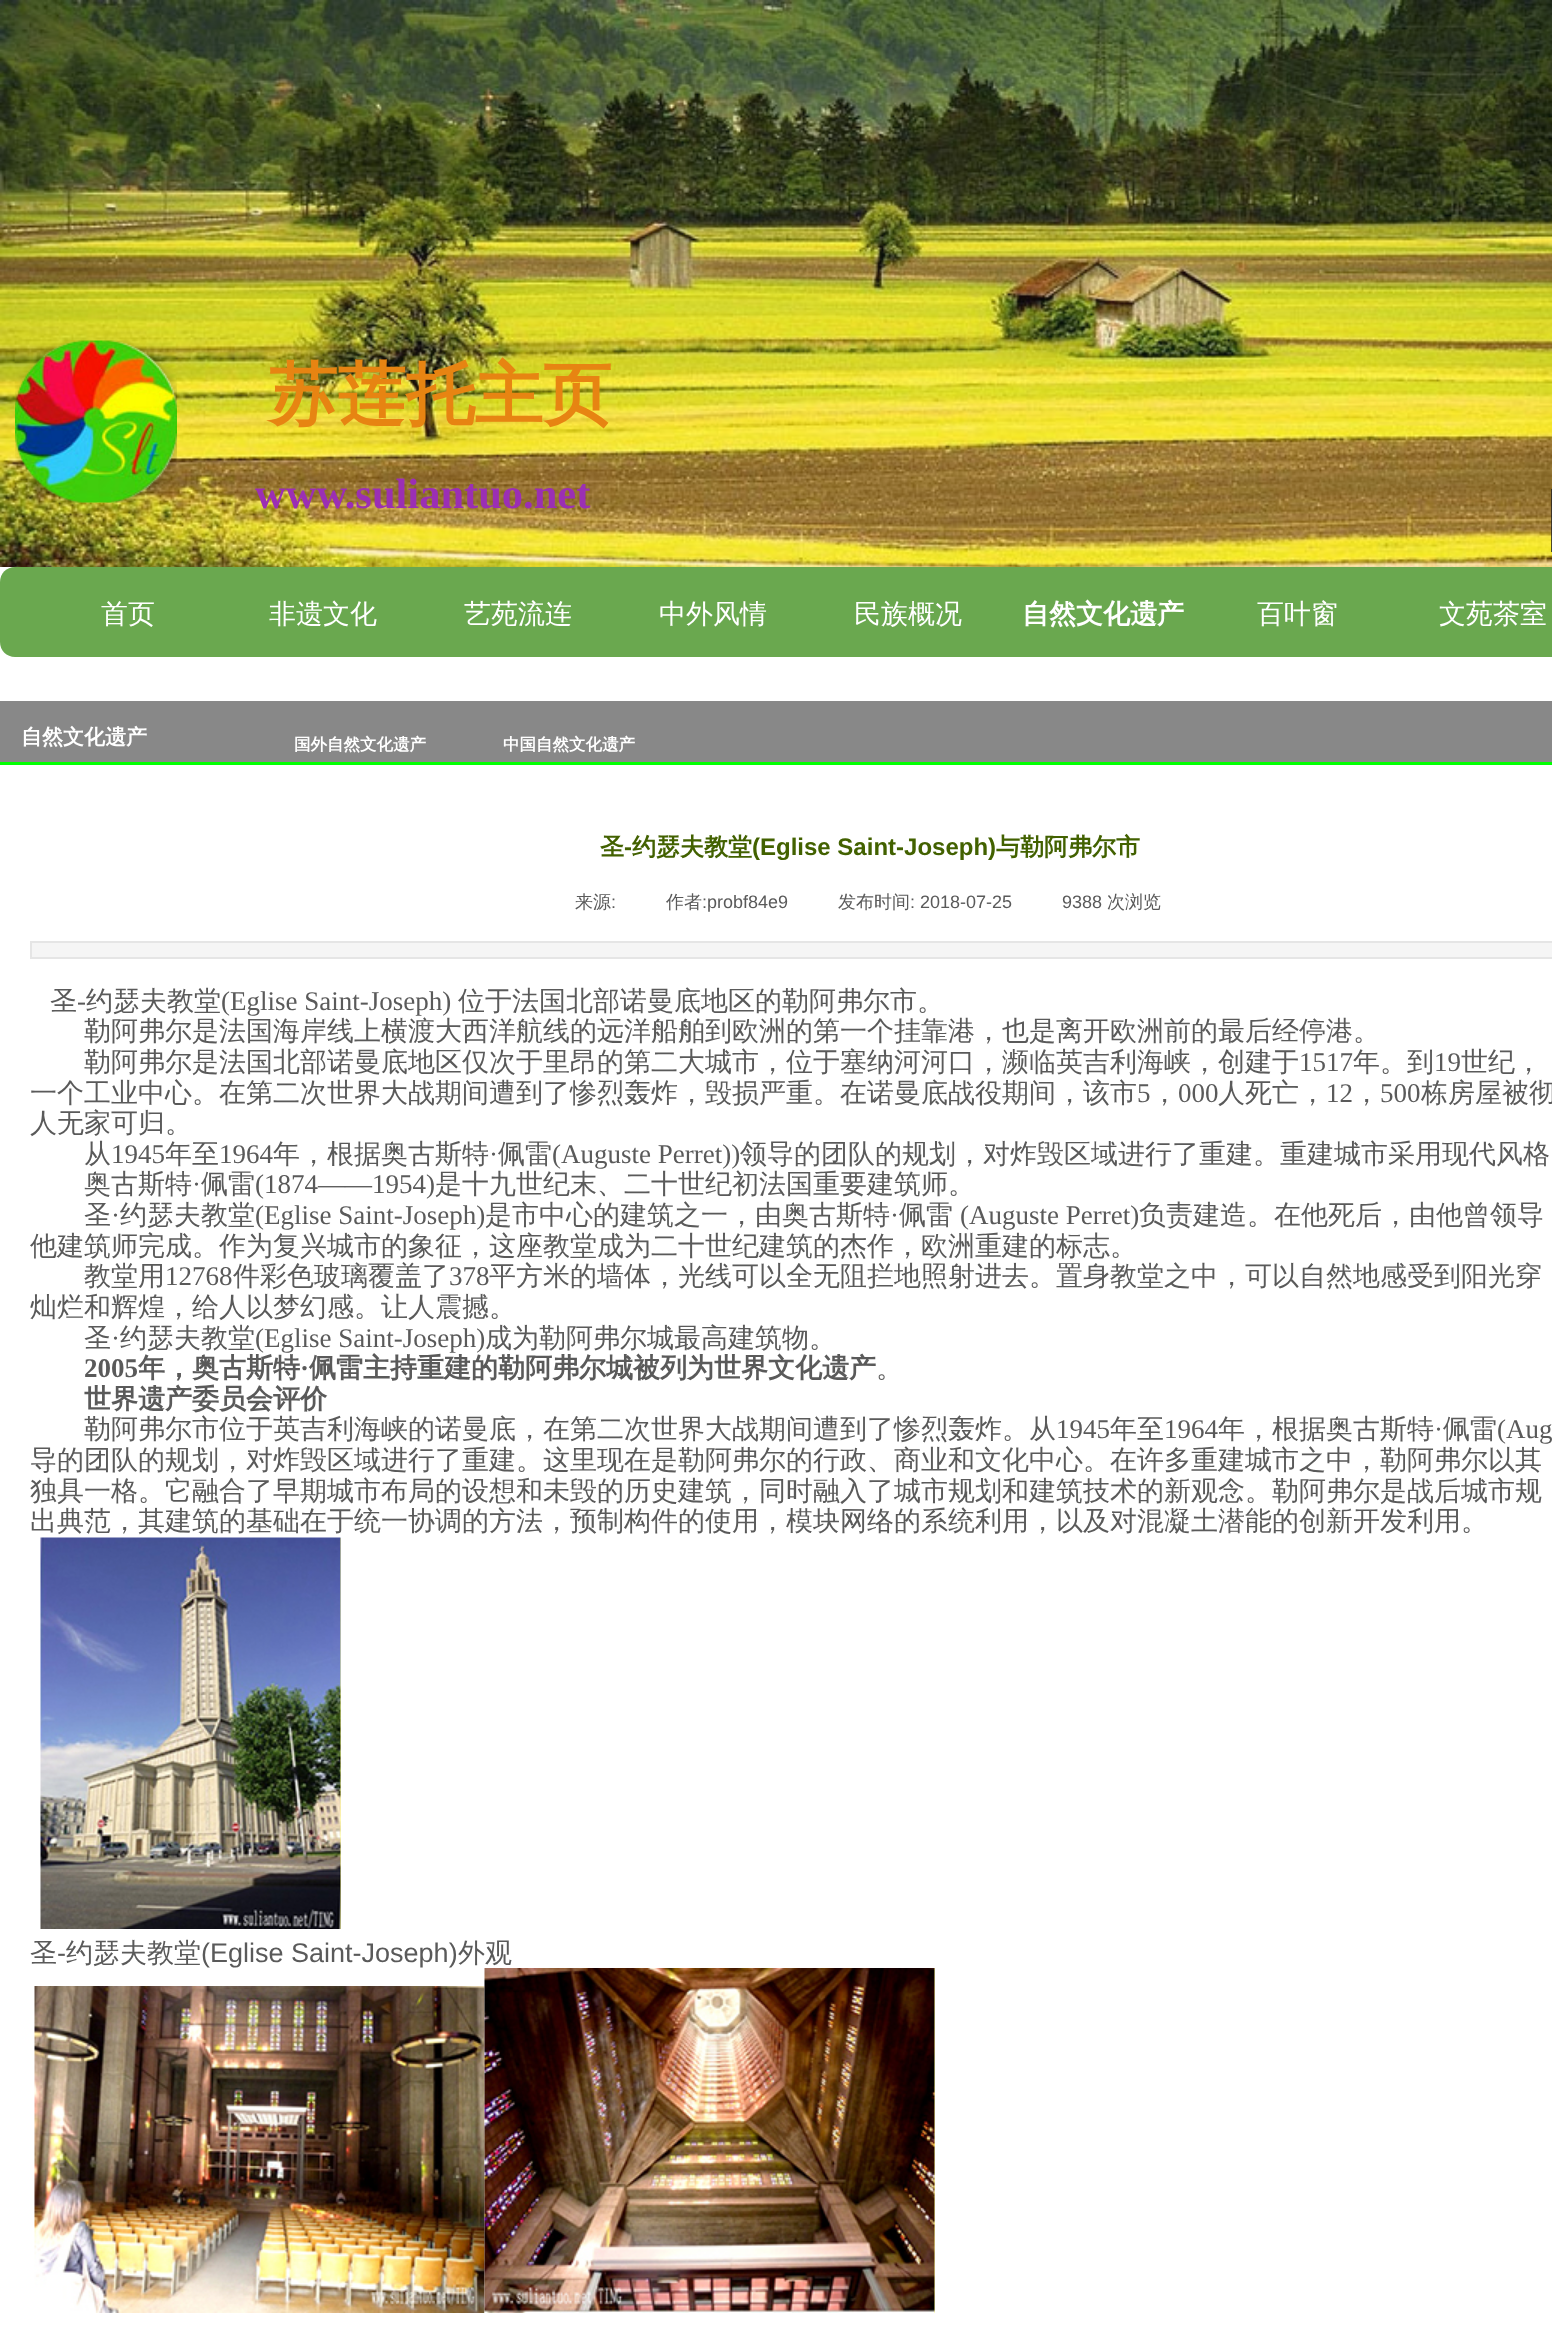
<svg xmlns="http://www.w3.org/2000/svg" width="1552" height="2345">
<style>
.a{font:bold 68.5px WenQuanYi Zen Hei;fill:#e78412}
.b{font:bold 42.5px Liberation Serif;fill:#9b2fb4}
.c{font:500 27px WenQuanYi Zen Hei;fill:#fff}
.d{font:bold 27px WenQuanYi Zen Hei;fill:#fff}
.e{font:bold 21px WenQuanYi Zen Hei;fill:#fff}
.f{font:bold 16.5px WenQuanYi Zen Hei;fill:#fff}
.g{font:bold 24px WenQuanYi Zen Hei;fill:#426100}
.h{font:bold 24px Liberation Sans;fill:#426100}
.i{font:500 18px WenQuanYi Zen Hei;fill:#5a5a5a}
.j{font:18px Liberation Sans;fill:#5a5a5a}
.k{font:500 27px WenQuanYi Zen Hei;fill:#5a5a5a}
.l{font:27px Liberation Serif;fill:#5a5a5a}
.m{font:bold 27px Liberation Serif;fill:#5a5a5a}
.n{font:bold 27px WenQuanYi Zen Hei;fill:#5a5a5a}
.o{font:27px Liberation Sans;fill:#5a5a5a}
</style>
<rect width="100%" height="100%" fill="#fff"/>
<image href="1.png" x="0" y="0" width="1552" height="567"/>
<image href="2.png" x="15" y="340" width="162" height="163"/>
<path fill="#6aa84f" d="M15 567h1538v90h-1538c-8.5 0-15-6.5-15-15v-60c0-8.5 6.5-15 15-15z"/>
<path fill="#888" d="M0 701h1552v61H0z"/>
<path fill="#0f0" d="M0 762h1552v3H0z"/>
<path fill="#f5f5f5" stroke="#e5e5e5" stroke-width="2" d="M31 942h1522v16H31z"/>
<path fill="#ff9" d="M340 1538h1v391H340z"/>
<image href="3.png" x="40" y="1537" width="301" height="392"/>
<image href="5.png" x="34" y="1986" width="451" height="327"/>
<path fill="#ff9" d="M934 1968h1v345H934z"/>
<image href="4.png" x="484" y="1968" width="451" height="345"/>
<text class="a" x="269" y="418">苏莲托主页</text>
<text class="b" x="255" y="508">www.suliantuo.net</text>
<text class="c" x="101" y="623">首页</text>
<text class="c" x="269" y="623">非遗文化</text>
<text class="c" x="464" y="623">艺苑流连</text>
<text class="c" x="659" y="623">中外风情</text>
<text class="c" x="854" y="623">民族概况</text>
<text class="d" x="1022" y="623">自然文化遗产</text>
<text class="c" x="1257" y="623">百叶窗</text>
<text class="c" x="1439" y="623">文苑茶室</text>
<text class="e" x="21" y="744">自然文化遗产</text>
<text class="f" x="294" y="750">国外自然文化遗产</text>
<text class="f" x="503" y="750">中国自然文化遗产</text>
<text class="g" x="600" y="855">圣</text>
<text class="h" x="624" y="855">-</text>
<text class="g" x="632" y="855">约瑟夫教堂</text>
<text class="h" x="752" y="855">(Eglise Saint-Joseph)</text>
<text class="g" x="996" y="855">与勒阿弗尔市</text>
<text class="i" x="575" y="908">来源</text>
<text class="j" x="611" y="908">:</text>
<text class="i" x="666" y="908">作者</text>
<text class="j" x="702" y="908">:probf84e9</text>
<text class="i" x="838" y="908">发布时间</text>
<text class="j" x="910" y="908">: 2018-07-25</text>
<text class="j" x="1062" y="908">9388</text>
<text class="i" x="1107" y="908">次浏览</text>
<text class="k" x="50" y="1010">圣</text>
<text class="l" x="77" y="1010">-</text>
<text class="k" x="86" y="1010">约瑟夫教堂</text>
<text class="l" x="221" y="1010">(Eglise Saint-Joseph)</text>
<text class="k" x="458" y="1010">位于法国北部诺曼底地区的勒阿弗尔市。</text>
<text class="k" x="84" y="1040">勒阿弗尔是法国海岸线上横渡大西洋航线的远洋船舶到欧洲的第一个挂靠港，也是离开欧洲前的最后经停港。</text>
<text class="k" x="84" y="1071">勒阿弗尔是法国北部诺曼底地区仅次于里昂的第二大城市，位于塞纳河河口，濒临英吉利海峡，创建于</text>
<text class="l" x="1299" y="1071">1517</text>
<text class="k" x="1353" y="1071">年。到</text>
<text class="l" x="1434" y="1071">19</text>
<text class="k" x="1461" y="1071">世纪，</text>
<text class="k" x="30" y="1102">一个工业中心。在第二次世界大战期间遭到了惨烈轰炸，毁损严重。在诺曼底战役期间，该市</text>
<text class="l" x="1137" y="1102">5</text>
<text class="k" x="1151" y="1102">，</text>
<text class="l" x="1178" y="1102">000</text>
<text class="k" x="1218" y="1102">人死亡，</text>
<text class="l" x="1326" y="1102">12</text>
<text class="k" x="1353" y="1102">，</text>
<text class="l" x="1380" y="1102">500</text>
<text class="k" x="1421" y="1102">栋房屋被彻</text>
<text class="k" x="30" y="1132">人无家可归。</text>
<text class="k" x="84" y="1163">从</text>
<text class="l" x="111" y="1163">1945</text>
<text class="k" x="165" y="1163">年至</text>
<text class="l" x="219" y="1163">1964</text>
<text class="k" x="273" y="1163">年，根据奥古斯特</text>
<text class="l" x="489" y="1163">·</text>
<text class="k" x="498" y="1163">佩雷</text>
<text class="l" x="552" y="1163">(Auguste Perret))</text>
<text class="k" x="740" y="1163">领导的团队的规划，对炸毁区域进行了重建。重建城市采用现代风格</text>
<text class="k" x="84" y="1193">奥古斯特</text>
<text class="l" x="192" y="1193">·</text>
<text class="k" x="201" y="1193">佩雷</text>
<text class="l" x="255" y="1193">(1874——1954)</text>
<text class="k" x="435" y="1193">是十九世纪末、二十世纪初法国重要建筑师。</text>
<text class="k" x="84" y="1224">圣</text>
<text class="l" x="111" y="1224">·</text>
<text class="k" x="120" y="1224">约瑟夫教堂</text>
<text class="l" x="255" y="1224">(Eglise Saint-Joseph)</text>
<text class="k" x="485" y="1224">是市中心的建筑之一，由奥古斯特</text>
<text class="l" x="890" y="1224">·</text>
<text class="k" x="899" y="1224">佩雷</text>
<text class="l" x="960" y="1224">(Auguste Perret)</text>
<text class="k" x="1139" y="1224">负责建造。在他死后，由他曾领导</text>
<text class="k" x="30" y="1255">他建筑师完成。作为复兴城市的象征，这座教堂成为二十世纪建筑的杰作，欧洲重建的标志。</text>
<text class="k" x="84" y="1285">教堂用</text>
<text class="l" x="165" y="1285">12768</text>
<text class="k" x="233" y="1285">件彩色玻璃覆盖了</text>
<text class="l" x="449" y="1285">378</text>
<text class="k" x="489" y="1285">平方米的墙体，光线可以全无阻拦地照射进去。置身教堂之中，可以自然地感受到阳光穿</text>
<text class="k" x="30" y="1316">灿烂和辉煌，给人以梦幻感。让人震撼。</text>
<text class="k" x="84" y="1347">圣</text>
<text class="l" x="111" y="1347">·</text>
<text class="k" x="120" y="1347">约瑟夫教堂</text>
<text class="l" x="255" y="1347">(Eglise Saint-Joseph)</text>
<text class="k" x="485" y="1347">成为勒阿弗尔城最高建筑物。</text>
<text class="m" x="84" y="1377">2005</text>
<text class="n" x="138" y="1377">年，奥古斯特</text>
<text class="m" x="300" y="1377">·</text>
<text class="n" x="309" y="1377">佩雷主持重建的勒阿弗尔城被列为世界文化遗产</text>
<text class="k" x="876" y="1377">。</text>
<text class="n" x="84" y="1408">世界遗产委员会评价</text>
<text class="k" x="84" y="1438">勒阿弗尔市位于英吉利海峡的诺曼底，在第二次世界大战期间遭到了惨烈轰炸。从</text>
<text class="l" x="1056" y="1438">1945</text>
<text class="k" x="1110" y="1438">年至</text>
<text class="l" x="1164" y="1438">1964</text>
<text class="k" x="1218" y="1438">年，根据奥古斯特</text>
<text class="l" x="1434" y="1438">·</text>
<text class="k" x="1443" y="1438">佩雷</text>
<text class="l" x="1497" y="1438">(Aug</text>
<text class="k" x="30" y="1469">导的团队的规划，对炸毁区域进行了重建。这里现在是勒阿弗尔的行政、商业和文化中心。在许多重建城市之中，勒阿弗尔以其</text>
<text class="k" x="30" y="1500">独具一格。它融合了早期城市布局的设想和未毁的历史建筑，同时融入了城市规划和建筑技术的新观念。勒阿弗尔是战后城市规</text>
<text class="k" x="30" y="1530">出典范，其建筑的基础在于统一协调的方法，预制构件的使用，模块网络的系统利用，以及对混凝土潜能的创新开发利用。</text>
<text class="k" x="30" y="1962">圣</text>
<text class="o" x="57" y="1962">-</text>
<text class="k" x="66" y="1962">约瑟夫教堂</text>
<text class="o" x="201" y="1962">(Eglise Saint-Joseph)</text>
<text class="k" x="458" y="1962">外观</text>
</svg>
